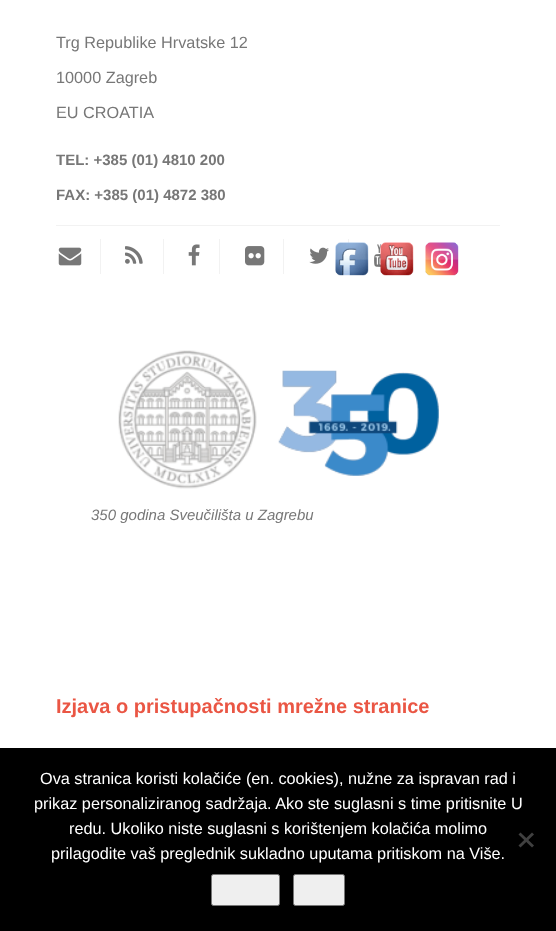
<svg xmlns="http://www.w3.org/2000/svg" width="556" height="931">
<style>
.a{font:16.25px Liberation Sans;fill:#777}
.b{font:bold 15px Liberation Sans;fill:#777}
.c{font:italic 15px Liberation Sans;fill:#777}
.d{font:bold 20px Liberation Sans;fill:#ea5644}
.e{font:16.25px Liberation Sans;fill:#fff}
</style>
<rect width="100%" height="100%" fill="#fff"/>
<path fill="#f2f2f2" d="M56 225h444v1H56z"/>
<path fill="#f2f2f2" d="M100 239h1v35H100z"/>
<image href="1.png" x="58" y="247" width="24" height="19"/>
<path fill="#f2f2f2" d="M163 239h1v35H163z"/>
<image href="2.png" x="125" y="246" width="18" height="18"/>
<path fill="#f2f2f2" d="M219 239h1v35H219z"/>
<image href="3.png" x="188" y="244" width="12" height="22"/>
<path fill="#f2f2f2" d="M283 239h1v35H283z"/>
<image href="4.png" x="245" y="246" width="20" height="20"/>
<path fill="#f2f2f2" d="M348 239h1v4H348z"/>
<image href="5.png" x="309" y="247" width="20" height="17"/>
<image href="6.png" x="374" y="244" width="7" height="23"/>
<image href="7.png" x="118" y="350" width="321" height="139"/>
<image href="8.png" x="335" y="242" width="34" height="34"/>
<image href="9.png" x="380" y="242" width="34" height="34"/>
<image href="10.png" x="425" y="242" width="34" height="34"/>
<path fill="#000" d="M0 748h556v183H0z"/>
<path fill="#404040" d="M532 832.5l2 2l-13.5 13l-2-2z"/>
<path fill="#404040" d="M518.5 834.5l2-2l13.5 13l-2 2z"/>
<rect fill="#efefef" stroke="#767676" x="211.5" y="874.5" width="68" height="31" rx="2"/>
<rect fill="#efefef" stroke="#767676" x="293.5" y="874.5" width="51" height="31" rx="2"/>
<text class="a" x="56" y="48">Trg Republike Hrvatske 12</text>
<text class="a" x="56" y="83">10000 Zagreb</text>
<text class="a" x="56" y="118">EU CROATIA</text>
<text class="b" x="56" y="165">TEL: +385 (01) 4810 200</text>
<text class="b" x="56" y="200">FAX: +385 (01) 4872 380</text>
<text class="c" x="91" y="520">350 godina Sveučilišta u Zagrebu</text>
<text class="d" x="56" y="713">Izjava o pristupačnosti mrežne stranice</text>
<text class="e" x="40" y="784">Ova stranica koristi kolačiće (en. cookies), nužne za ispravan rad i</text>
<text class="e" x="34" y="809">prikaz personaliziranog sadržaja. Ako ste suglasni s time pritisnite U</text>
<text class="e" x="69" y="834">redu. Ukoliko niste suglasni s korištenjem kolačića molimo</text>
<text class="e" x="51" y="859">prilagodite vaš preglednik sukladno uputama pritiskom na Više.</text>
</svg>
